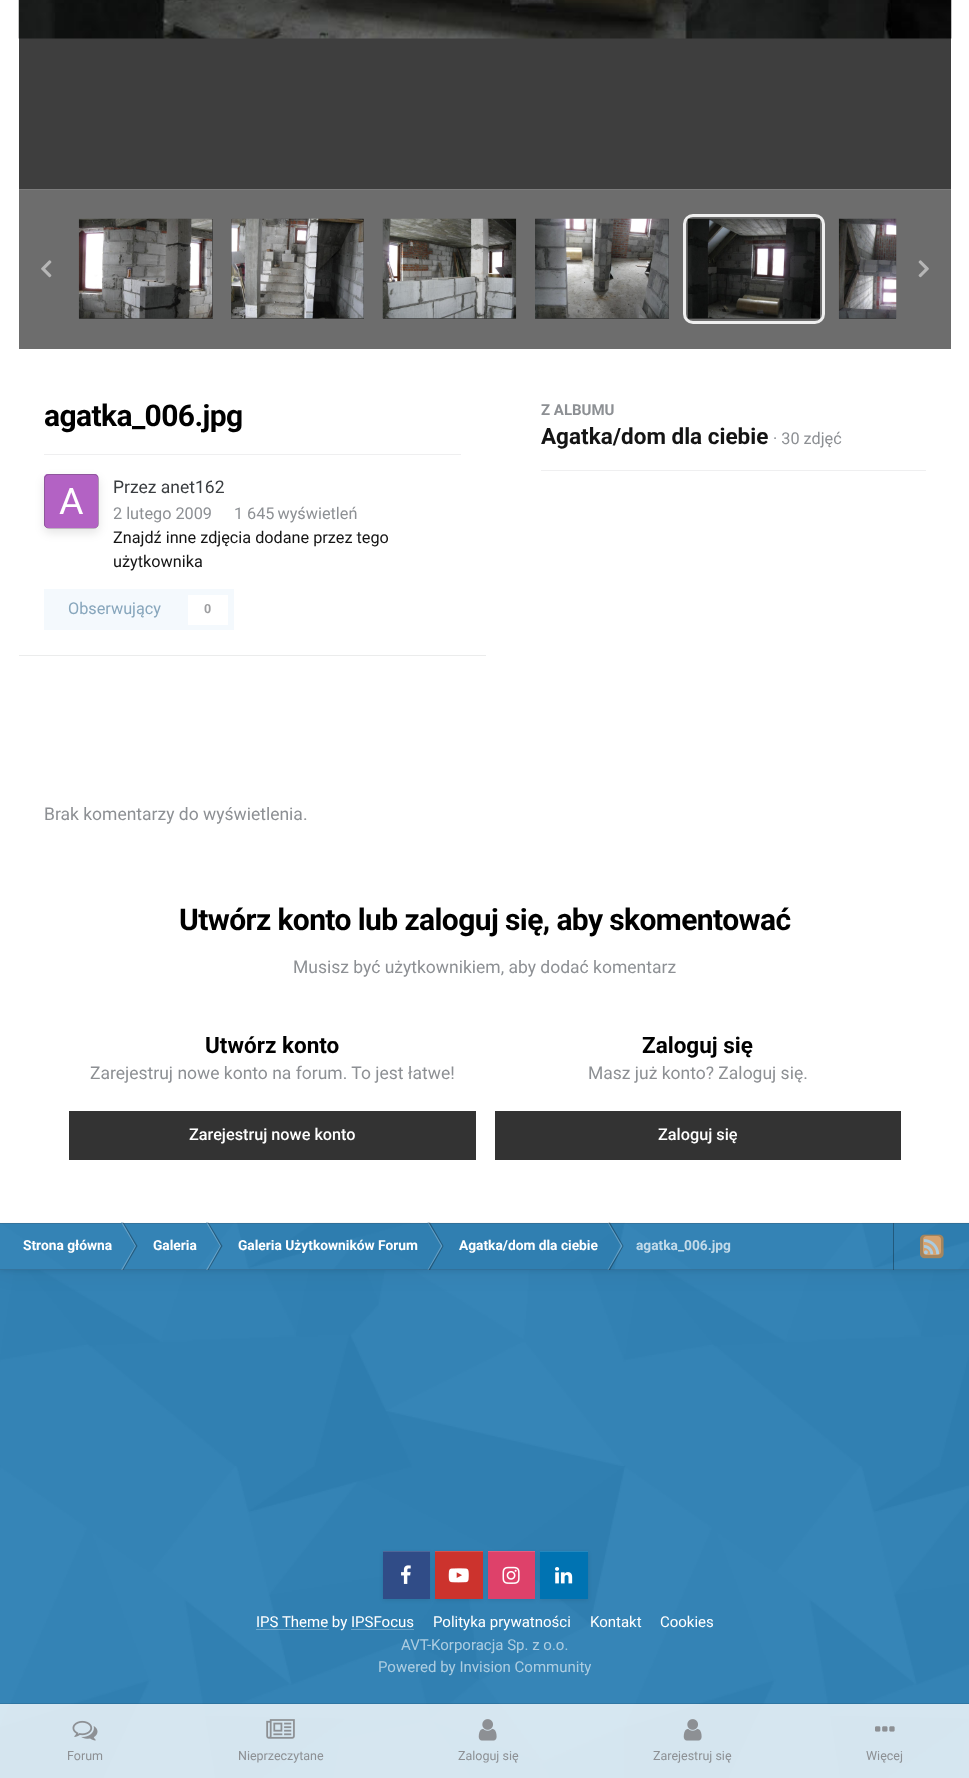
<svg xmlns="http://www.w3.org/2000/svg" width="969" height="1778">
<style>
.a{font:bold 30px Roboto;letter-spacing:-0.6px;fill:#000}
.b{font:17.5px Roboto;fill:#3a3d40}
.c{font:16.25px Roboto;fill:#8d9094}
.d{font:16.25px Roboto;fill:#141414}
.e{font:16.25px Roboto;fill:#87a6bc}
.f{font:bold 12.5px Roboto;fill:#9d9ea0}
.g{font:bold 15px Roboto;fill:#8d9094}
.h{font:bold 22.5px Roboto;fill:#141414}
.i{font:17.5px Roboto;fill:#8d9094}
.j{font:bold 22.5px Roboto;fill:#000}
.k{font:500 16.25px Roboto;fill:#fff}
.l{font:bold 13.75px Roboto;fill:#fff}
.m{font:bold 13.75px Roboto;fill:#c2dae9}
.n{font:15px Roboto;fill:#fff}
.o{font:15px Roboto;fill:#adcde1}
.p{font:12.5px Roboto;fill:#8d9094}
</style>
<defs>
<clipPath id="clip1"><path d="M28 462h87v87h-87zm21 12h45c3 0 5 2 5 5v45c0 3-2 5-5 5h-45c-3 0-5-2-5-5v-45c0-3 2-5 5-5z" clip-rule="evenodd"/></clipPath>
</defs>
<rect width="100%" height="100%" fill="#2e81b6"/>
<image href="1.png" x="0" y="1270" width="969" height="508"/>
<path fill="#00000014" filter="blur(2px)" d="M0 -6h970v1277H0z"/>
<path fill="#0000000f" filter="blur(12.5px)" d="M0 -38h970v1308H0z"/>
<path fill="#fff" d="M0 0h969v1223H0z"/>
<path fill="#3e3e3e" d="M19 38h932v151H19z"/>
<image href="2.png" x="18" y="0" width="934" height="39"/>
<path fill="#6d6d6d" d="M19 190h932v159H19z"/>
<path fill="#7c7c7c" d="M19 189h932v1H19z"/>
<path fill="#3d3d3d" d="M79 219h134v100H79z"/>
<image href="3.png" x="78" y="218" width="135" height="101"/>
<path fill="#3d3d3d" d="M231 219h133v100H231z"/>
<image href="4.png" x="231" y="218" width="133" height="101"/>
<path fill="#3d3d3d" d="M383 318h133v1H383z"/>
<image href="5.png" x="382" y="218" width="135" height="101"/>
<path fill="#3d3d3d" d="M535 219h134v100H535z"/>
<image href="6.png" x="535" y="218" width="134" height="101"/>
<path fill="#3d3d3d" d="M688 318h132v1H688z"/>
<rect fill="none" stroke="#efefef" stroke-width="3" x="684.5" y="215.5" width="139" height="107" rx="8.5"/>
<image href="7.png" x="687" y="218" width="133" height="101"/>
<path fill="#3d3d3d" d="M839 318h57v1H839z"/>
<image href="8.png" x="838" y="218" width="59" height="101"/>
<image href="9.png" x="41" y="260" width="11" height="18"/>
<image href="10.png" x="918" y="260" width="11" height="18"/>
<path fill="#efeff0" d="M44 454h417v1H44z"/>
<image href="11.png" x="44" y="474" width="55" height="55"/>
<g clip-path="url(#clip1)">
<rect fill="#0000001a" filter="blur(5px)" x="44" y="478" width="55" height="55" rx="5"/>
</g>
<rect fill="none" stroke="#3a3d404d" x="44.5" y="474.5" width="54" height="54" rx="4.5"/>
<path fill="#f4f9fd" d="M44 589h190v41H44z"/>
<path fill="#fff" d="M188 595h40v30H188z"/>
<path fill="#ebecec" d="M19 655h467v1H19z"/>
<path fill="#efeff0" d="M541 470h385v1H541z"/>
<path fill="#333" d="M69 1111h407v49H69z"/>
<path fill="#333" d="M495 1111h406v49H495z"/>
<path fill="#2e81b6" d="M0 1223h969v47H0z"/>
<image href="12.png" x="0" y="1222" width="969" height="48"/>
<path fill="#67a2c8" d="M121 1222.5h1.5l13.5 23.5h-1z"/>
<path fill="#0000004d" d="M122.5 1222.5h1l14 23.5h-1.5z"/>
<path fill="#67a3c8" d="M206 1222.5h1.5l13.5 23.5h-1z"/>
<path fill="#0000004d" d="M207.5 1222.5h1l14 23.5h-1.5z"/>
<path fill="#649fc5" d="M427.5 1222.5h1l14 23.5h-1.5z"/>
<path fill="#0000004d" d="M428.5 1222.5h1.5l13.5 23.5h-1z"/>
<path fill="#ffffff40" d="M607.5 1222.5h1l14 23.5h-1.5z"/>
<path fill="#0000004d" d="M608.5 1222.5h1.5l13.5 23.5h-1z"/>
<path fill="#0000004d" d="M893 1223h1v47H893z"/>
<path fill="#3a3d4033" d="M0 1223h969v1H0z"/>
<path fill="#67a2c8" d="M121 1270h1.5l13.5-24h-1z"/>
<path fill="#0000004d" d="M122.5 1270h1l14-24h-1.5z"/>
<path fill="#69a4ca" d="M206 1270h1.5l13.5-24h-1z"/>
<path fill="#0000004d" d="M207.5 1270h1l14-24h-1.5z"/>
<path fill="#649fc5" d="M427.5 1270h1l14-24h-1.5z"/>
<path fill="#0000004d" d="M428.5 1270h1.5l13.5-24h-1z"/>
<path fill="#ffffff40" d="M607.5 1270h1l14-24h-1.5z"/>
<path fill="#0000004d" d="M608.5 1270h1.5l13.5-24h-1z"/>
<path fill="#3a3d4033" d="M0 1269h969v1H0z"/>
<rect fill="#ffffff99" x="923" y="1236" width="18" height="19" rx="4"/>
<image href="13.png" x="920" y="1234" width="24" height="25"/>
<path fill="#0000001a" filter="blur(2px)" d="M383 1553h47v47H383z"/>
<path fill="#304c87" d="M383 1552h47v47H383z"/>
<path fill="#4f6799" d="M383 1551h47v1H383z"/>
<image href="14.png" x="401" y="1565" width="10" height="19"/>
<path fill="#0000001a" filter="blur(2px)" d="M435 1553h48v47H435z"/>
<path fill="#cc332d" d="M435 1552h48v47H435z"/>
<path fill="#d4524d" d="M435 1551h48v1H435z"/>
<image href="15.png" x="448" y="1568" width="21" height="15"/>
<path fill="#0000001a" filter="blur(2px)" d="M488 1553h47v47H488z"/>
<path fill="#de416a" d="M488 1552h47v47H488z"/>
<path fill="#e35e80" d="M488 1551h47v1H488z"/>
<image href="16.png" x="502" y="1566" width="18" height="18"/>
<path fill="#0000001a" filter="blur(2px)" d="M540 1553h48v47H540z"/>
<path fill="#0073b2" d="M540 1552h48v47H540z"/>
<path fill="#2688be" d="M540 1551h48v1H540z"/>
<image href="17.png" x="555" y="1567" width="18" height="17"/>
<path fill="#ffffff4d" d="M256 1629h73v1H256z"/>
<path fill="#0000001a" d="M0 1703h969v1H0z"/>
<path fill="#ffffffcc" d="M0 1704h969v74H0z"/>
<image href="18.png" x="72" y="1720" width="26" height="21"/>
<image href="19.png" x="266" y="1719" width="29" height="20"/>
<image href="20.png" x="478" y="1719" width="19" height="22"/>
<image href="21.png" x="683" y="1719" width="19" height="22"/>
<image href="22.png" x="875" y="1726" width="20" height="6"/>
<text class="a" x="44" y="426">agatka_006.jpg</text>
<text class="b" x="113" y="493">Przez anet162</text>
<text class="c" x="113" y="519">2 lutego 2009</text>
<text class="c" x="234" y="519">1</text>
<text class="c" x="247" y="519" word-spacing="-1">645 wyświetleń</text>
<text class="d" x="113" y="543">Znajdź inne zdjęcia dodane przez tego</text>
<text class="d" x="113" y="567">użytkownika</text>
<text class="e" x="68" y="614">Obserwujący</text>
<text class="f" x="204" y="613">0</text>
<text class="g" x="541" y="415">Z ALBUMU</text>
<text class="h" x="541" y="444">Agatka/dom dla ciebie</text>
<text class="c" x="773" y="444">· 30 zdjęć</text>
<text class="i" x="44" y="820">Brak komentarzy do wyświetlenia.</text>
<text class="a" x="179" y="930">Utwórz konto lub zaloguj się, aby skomentować</text>
<text class="i" x="293" y="973">Musisz być użytkownikiem, aby dodać komentarz</text>
<text class="j" x="205" y="1053">Utwórz konto</text>
<text class="i" x="90" y="1079">Zarejestruj nowe konto na forum. To jest łatwe!</text>
<text class="k" x="189" y="1140">Zarejestruj nowe konto</text>
<text class="j" x="642" y="1053">Zaloguj się</text>
<text class="i" x="588" y="1079">Masz już konto? Zaloguj się.</text>
<text class="k" x="658" y="1140">Zaloguj się</text>
<text class="l" x="23" y="1250">Strona główna</text>
<text class="l" x="153" y="1250">Galeria</text>
<text class="l" x="238" y="1250">Galeria Użytkowników Forum</text>
<text class="l" x="459" y="1250">Agatka/dom dla ciebie</text>
<text class="m" x="636" y="1250">agatka_006.jpg</text>
<text class="n" x="256" y="1627">IPS Theme by IPSFocus</text>
<path fill="#6fa6c9" d="M351 1629h63v1H351z"/>
<text class="n" x="433" y="1627">Polityka prywatności</text>
<text class="n" x="590" y="1627">Kontakt</text>
<text class="n" x="660" y="1627">Cookies</text>
<text class="o" x="401" y="1650">AVT-Korporacja Sp. z o.o.</text>
<text class="o" x="378" y="1672">Powered by Invision Community</text>
<text class="p" x="67" y="1760">Forum</text>
<text class="p" x="238" y="1760">Nieprzeczytane</text>
<text class="p" x="458" y="1760">Zaloguj się</text>
<text class="p" x="653" y="1760">Zarejestruj się</text>
<text class="p" x="866" y="1760">Więcej</text>
</svg>
